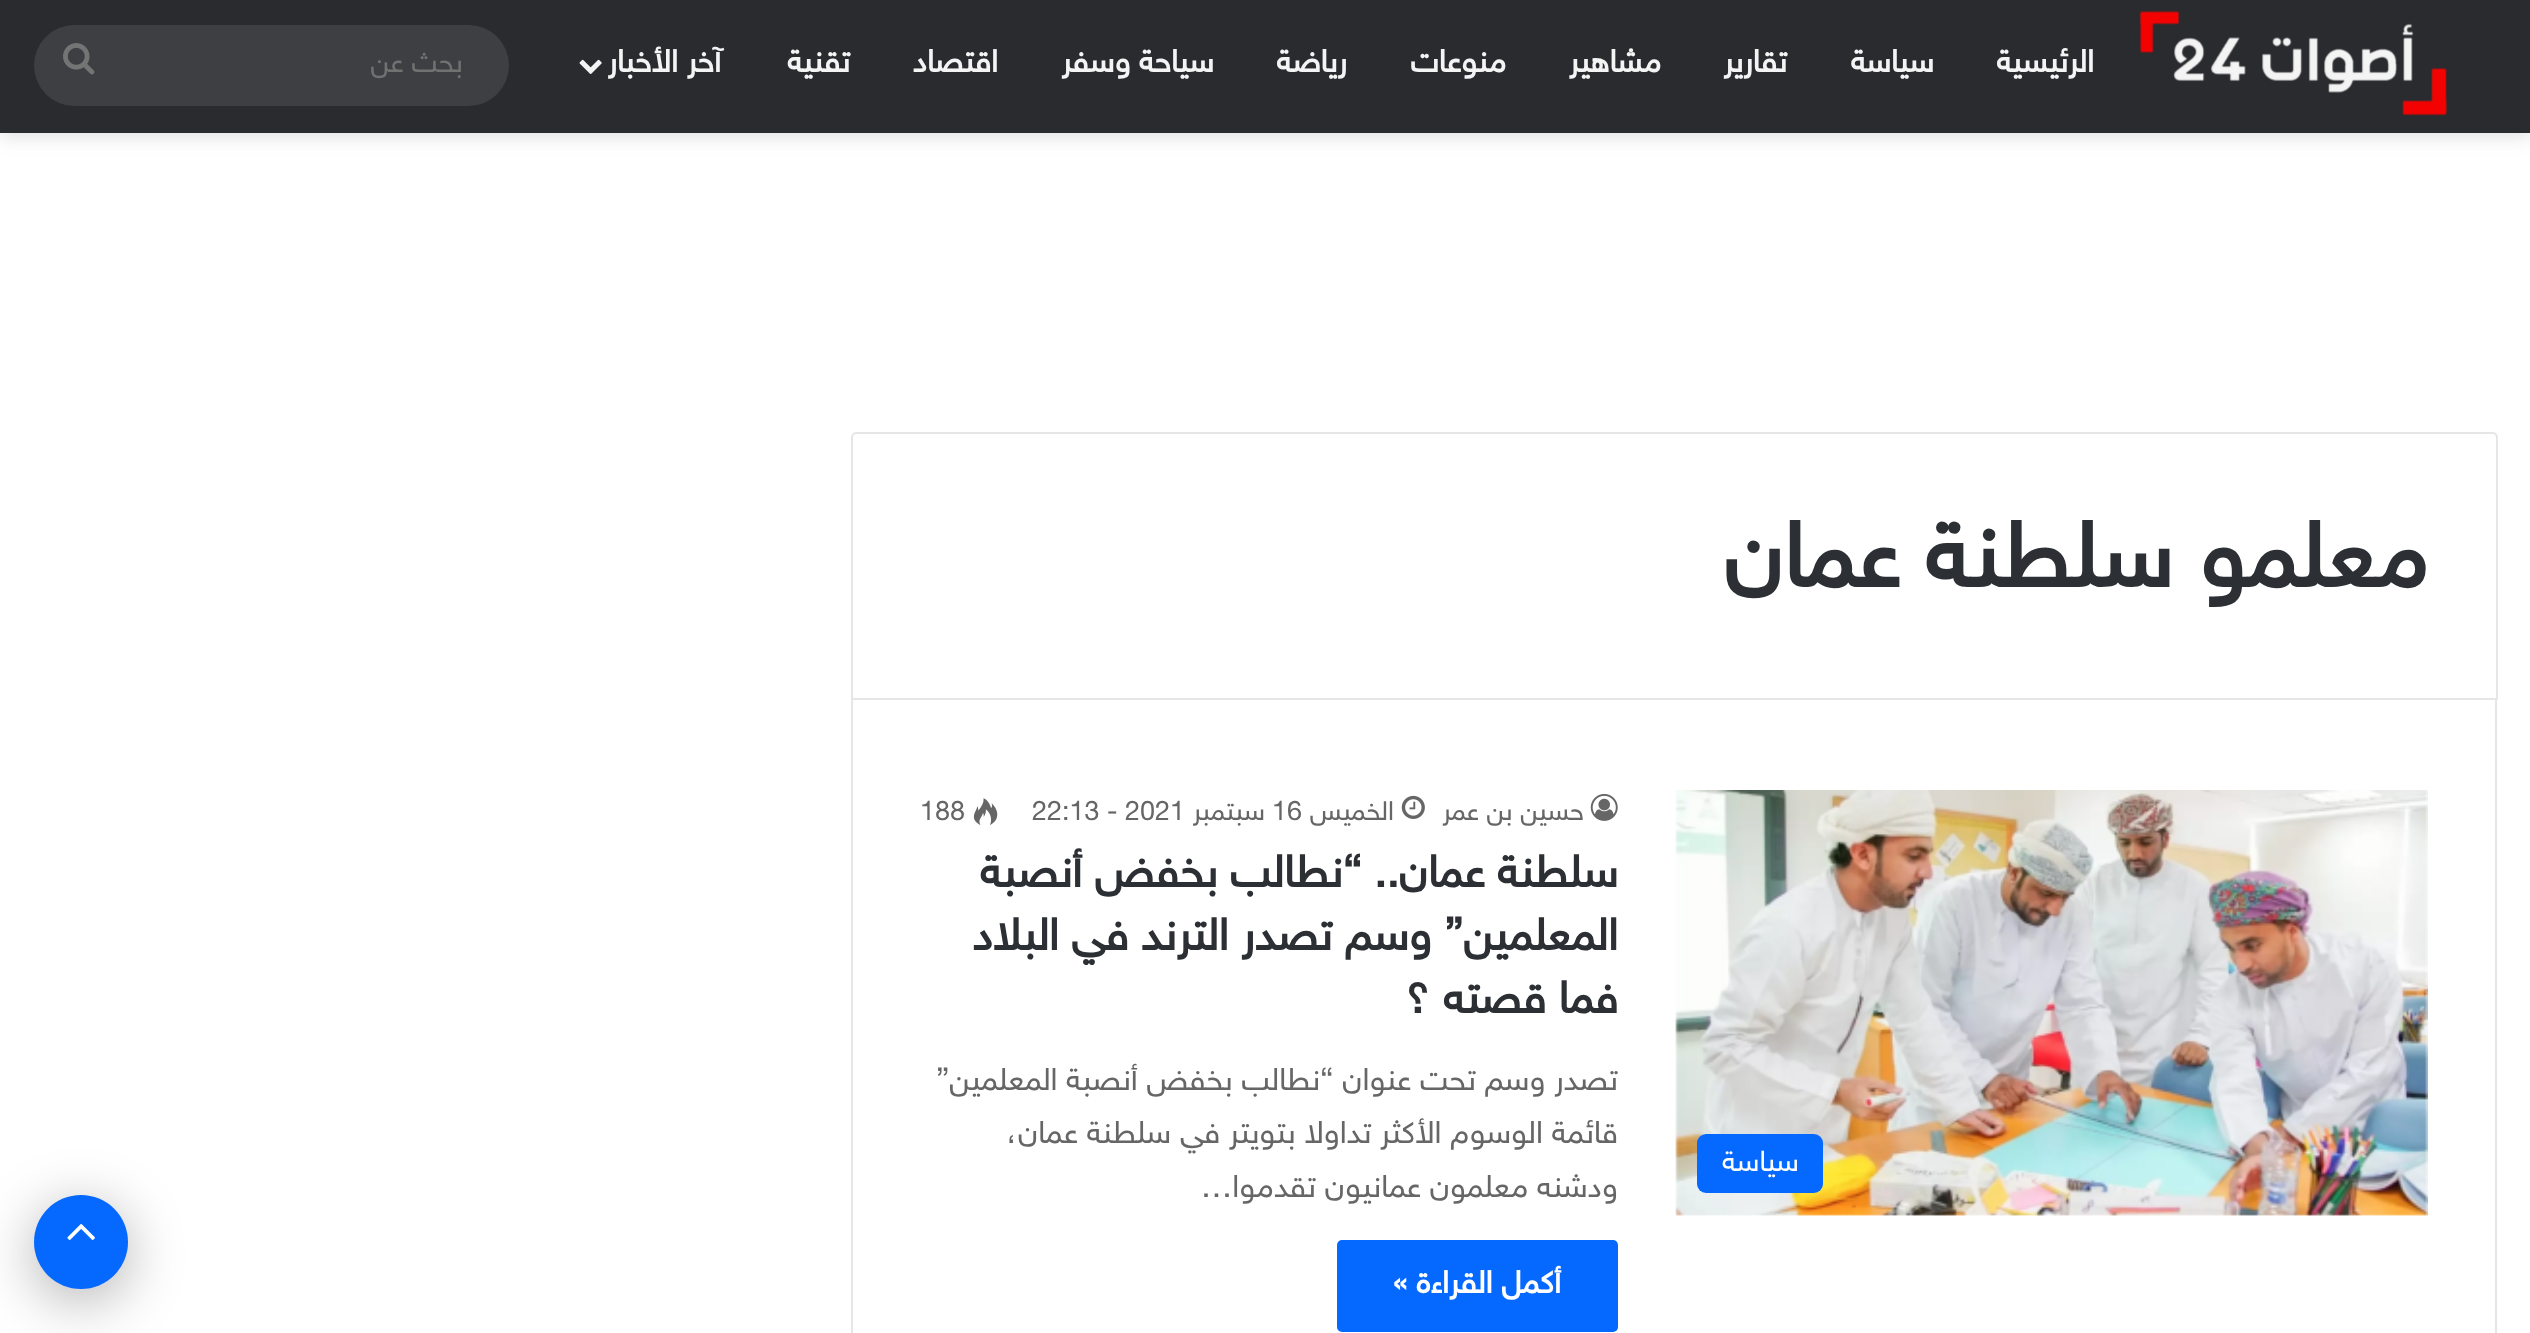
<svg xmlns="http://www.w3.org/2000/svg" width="2530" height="1333">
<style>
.a{font:bold 31.5px 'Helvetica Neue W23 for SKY';direction:rtl;fill:#f4f4f5}
.b{font:29px 'Helvetica Neue W23 for SKY';direction:rtl;fill:#717171}
.c{font:bold 92.25px 'Helvetica Neue W23 for SKY';direction:rtl;fill:#2c2f34}
.d{font:29px 'Helvetica Neue W23 for SKY';direction:rtl;fill:#fff}
.e{font:27px 'Helvetica Neue W23 for SKY';direction:rtl;fill:#666}
.f{font:27px 'Helvetica Neue W23 for SKY';fill:#666}
.g{font:bold 45px 'Helvetica Neue W23 for SKY';direction:rtl;fill:#2c2f34}
.h{font:31.5px 'Helvetica Neue W23 for SKY';direction:rtl;fill:#666}
.i{font:bold 31.5px 'Helvetica Neue W23 for SKY';direction:rtl;fill:#fff}
</style>
<defs>
<clipPath id="clip1"><path d="M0 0h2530v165h-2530zm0-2h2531v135h-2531z" clip-rule="evenodd"/></clipPath>
</defs>
<rect width="100%" height="100%" fill="#fff"/>
<g clip-path="url(#clip1)">
<path fill="#63636333" filter="blur(9px)" d="M0 2h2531v135H0z"/>
</g>
<path fill="#1f2024f2" d="M0 0h2530v133H0z"/>
<image href="1.png" x="2139" y="11" width="309" height="105"/>
<image href="2.png" x="579" y="59" width="23" height="15"/>
<rect fill="#3e3f43" x="34" y="25" width="475" height="81" rx="40.5"/>
<image href="3.png" x="63" y="43" width="32" height="32"/>
<path fill="none" stroke="#e6e6e6" stroke-width="2" d="M856 433h1637c2 0 4 2 4 4v262h-1645v-262c0-2 2-4 4-4z"/>
<path fill="#e6e6e6" d="M2495 700h2v633H2495z"/>
<path fill="#e6e6e6" d="M851 700h2v633H851z"/>
<image href="4.png" x="1675" y="790" width="753" height="426"/>
<rect fill="#0669ff" x="1697" y="1134" width="126" height="59" rx="9"/>
<image href="5.png" x="1590" y="793" width="28" height="28"/>
<image href="6.png" x="1401" y="795" width="24" height="24"/>
<image href="7.png" x="973" y="798" width="25" height="27"/>
<rect fill="#0669ff" x="1337" y="1240" width="281" height="92" rx="5"/>
<rect fill="#0000004d" filter="blur(28px)" x="34" y="1206" width="94" height="95" rx="47"/>
<circle fill="#0669ff" cx="81" cy="1242" r="47"/>
<image href="8.png" x="67" y="1224" width="28" height="16"/>
<text class="a" x="2094" y="72">الرئيسية</text>
<text class="a" x="1934" y="72">سياسة</text>
<text class="a" x="1787" y="72">تقارير</text>
<text class="a" x="1661" y="72">مشاهير</text>
<text class="a" x="1506" y="72">منوعات</text>
<text class="a" x="1347" y="72">رياضة</text>
<text class="a" x="1214" y="72">سياحة وسفر</text>
<text class="a" x="998" y="72">اقتصاد</text>
<text class="a" x="850" y="72">تقنية</text>
<text class="a" x="721" y="72">آخر الأخبار</text>
<text class="b" x="463" y="72">بحث عن</text>
<text class="c" x="2428" y="587">معلمو سلطنة عمان</text>
<text class="d" x="1799" y="1171">سياسة</text>
<text class="e" x="1584" y="820">حسين بن عمر</text>
<text class="e" x="1394" y="820">الخميس</text>
<text class="f" x="1272" y="820">16</text>
<text class="e" x="1265" y="820">سبتمبر</text>
<text class="f" x="1032" y="820">22:13 - 2021</text>
<text class="f" x="920" y="820">188</text>
<text class="g" x="1618" y="887">سلطنة عمان.. “نطالب بخفض أنصبة</text>
<text class="g" x="1618" y="950">المعلمين” وسم تصدر الترند في البلاد</text>
<text class="g" x="1618" y="1013">فما قصته ؟</text>
<text class="h" x="1618" y="1090">تصدر وسم تحت عنوان “نطالب بخفض أنصبة المعلمين”</text>
<text class="h" x="1618" y="1143">قائمة الوسوم الأكثر تداولا بتويتر في سلطنة عمان،</text>
<text class="h" x="1618" y="1197">ودشنه معلمون عمانيون تقدموا…</text>
<text class="i" x="1561" y="1293">أكمل القراءة »</text>
</svg>
